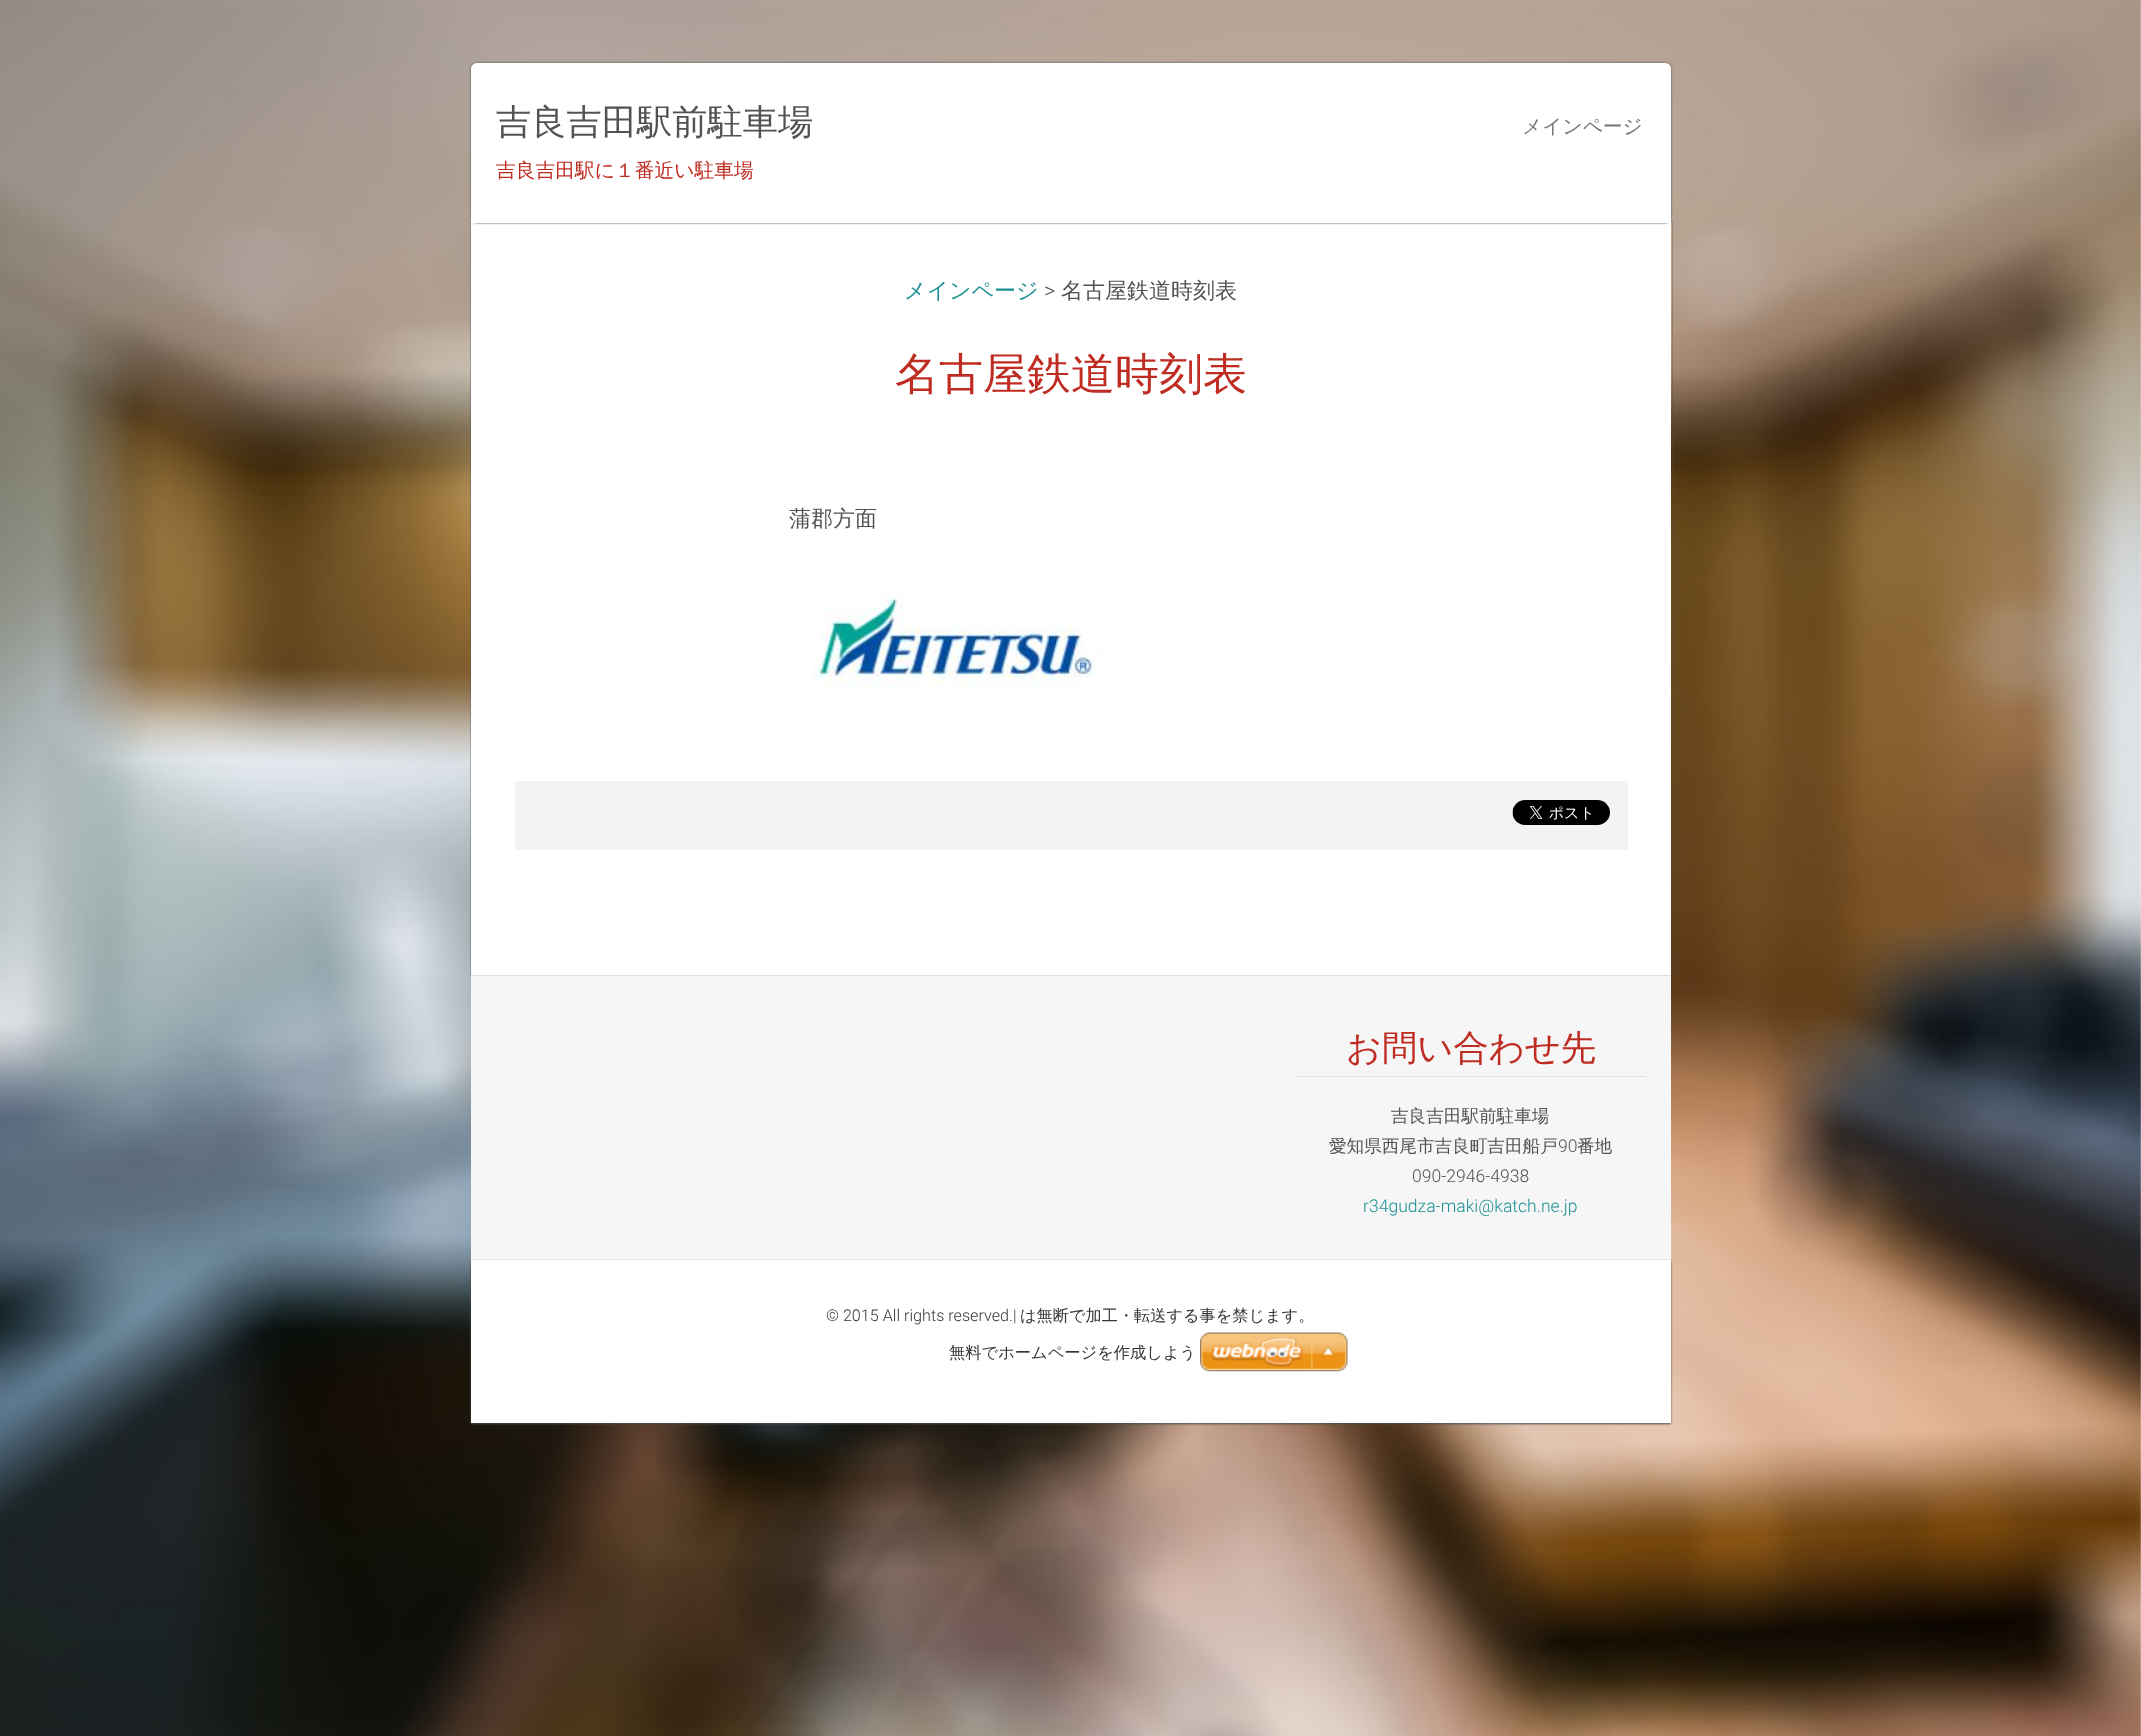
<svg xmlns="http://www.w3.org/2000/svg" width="2141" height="1736">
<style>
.a{font:500 35.25px WenQuanYi Zen Hei;fill:#535353}
.b{font:500 19.75px WenQuanYi Zen Hei;fill:#bf2c22}
.c{font:500 19.75px WenQuanYi Zen Hei;fill:#777}
.d{font:500 22px WenQuanYi Zen Hei;fill:#1e9195}
.e{font:300 22px Roboto;fill:#535353}
.f{font:500 22px WenQuanYi Zen Hei;fill:#535353}
.g{font:500 44px WenQuanYi Zen Hei;fill:#bf2c22}
.h{font:500 35.25px WenQuanYi Zen Hei;fill:#bf2c22}
.i{font:500 17.6px WenQuanYi Zen Hei;fill:#535353}
.j{font:300 17.6px Roboto;fill:#535353}
.k{font:300 17.6px Roboto;fill:#1e9195}
.l{font:300 16.2px Roboto;fill:#363636}
.m{font:500 16.2px WenQuanYi Zen Hei;fill:#363636}
.n{font:500 16.25px WenQuanYi Zen Hei;fill:#363636}
</style>
<rect width="100%" height="100%" fill="#fff"/>
<image href="1.png" x="0" y="0" width="2141" height="1736"/>
<path fill="none" stroke="#4c4c4c52" d="M470.5 221.5h1202v754H470.5z"/>
<path fill="#fff" d="M471 223h1200v752H471z"/>
<rect fill="#4c4c4c" filter="blur(1px)" x="471" y="63" width="1200" height="160" rx="6"/>
<path fill="#fff" d="M477 63h1188c3.5 0 6 2.5 6 6v154h-1200v-154c0-3.5 2.5-6 6-6z"/>
<image href="2.png" x="813" y="588" width="289" height="100"/>
<path fill="#f3f3f3" d="M515 781h1113v69H515z"/>
<image href="3.png" x="1512" y="800" width="98" height="25"/>
<path fill="#f6f6f6" d="M471 976h1200v284H471z"/>
<path fill="#ddd" d="M471 975h1200v1H471z"/>
<path fill="#e2e2e2" d="M1296 1076h350v1H1296z"/>
<path fill="#4c4c4c" filter="blur(1px)" d="M471 1261h1200v163H471z"/>
<path fill="#fff" d="M471 1260h1200v163H471z"/>
<image href="4.png" x="1200" y="1332" width="148" height="40"/>
<text class="a" x="496" y="134">吉良吉田駅前駐車場</text>
<text class="b" x="496" y="177">吉良吉田駅に１番近い駐車場</text>
<text class="c" x="1522" y="133">メインページ</text>
<text class="d" x="904" y="298">メインページ</text>
<text class="e" x="1044" y="298">&gt;</text>
<text class="f" x="1061" y="298">名古屋鉄道時刻表</text>
<text class="g" x="895" y="389">名古屋鉄道時刻表</text>
<text class="f" x="789" y="526">蒲郡方面</text>
<text class="h" x="1346" y="1060">お問い合わせ先</text>
<text class="i" x="1391" y="1122">吉良吉田駅前駐車場</text>
<text class="i" x="1329" y="1152">愛知県西尾市吉良町吉田船戸</text>
<text class="j" x="1558" y="1152">90</text>
<text class="i" x="1577" y="1152">番地</text>
<text class="j" x="1412" y="1182">090-2946-4938</text>
<text class="k" x="1363" y="1212">r34gudza-maki@katch.ne.jp</text>
<text class="l" x="826" y="1321">© 2015 All rights reserved.|</text>
<text class="m" x="1020" y="1321">は無断で加工・転送する事を禁じます。</text>
<text class="n" x="949" y="1358">無料でホームページを作成しよう</text>
</svg>
